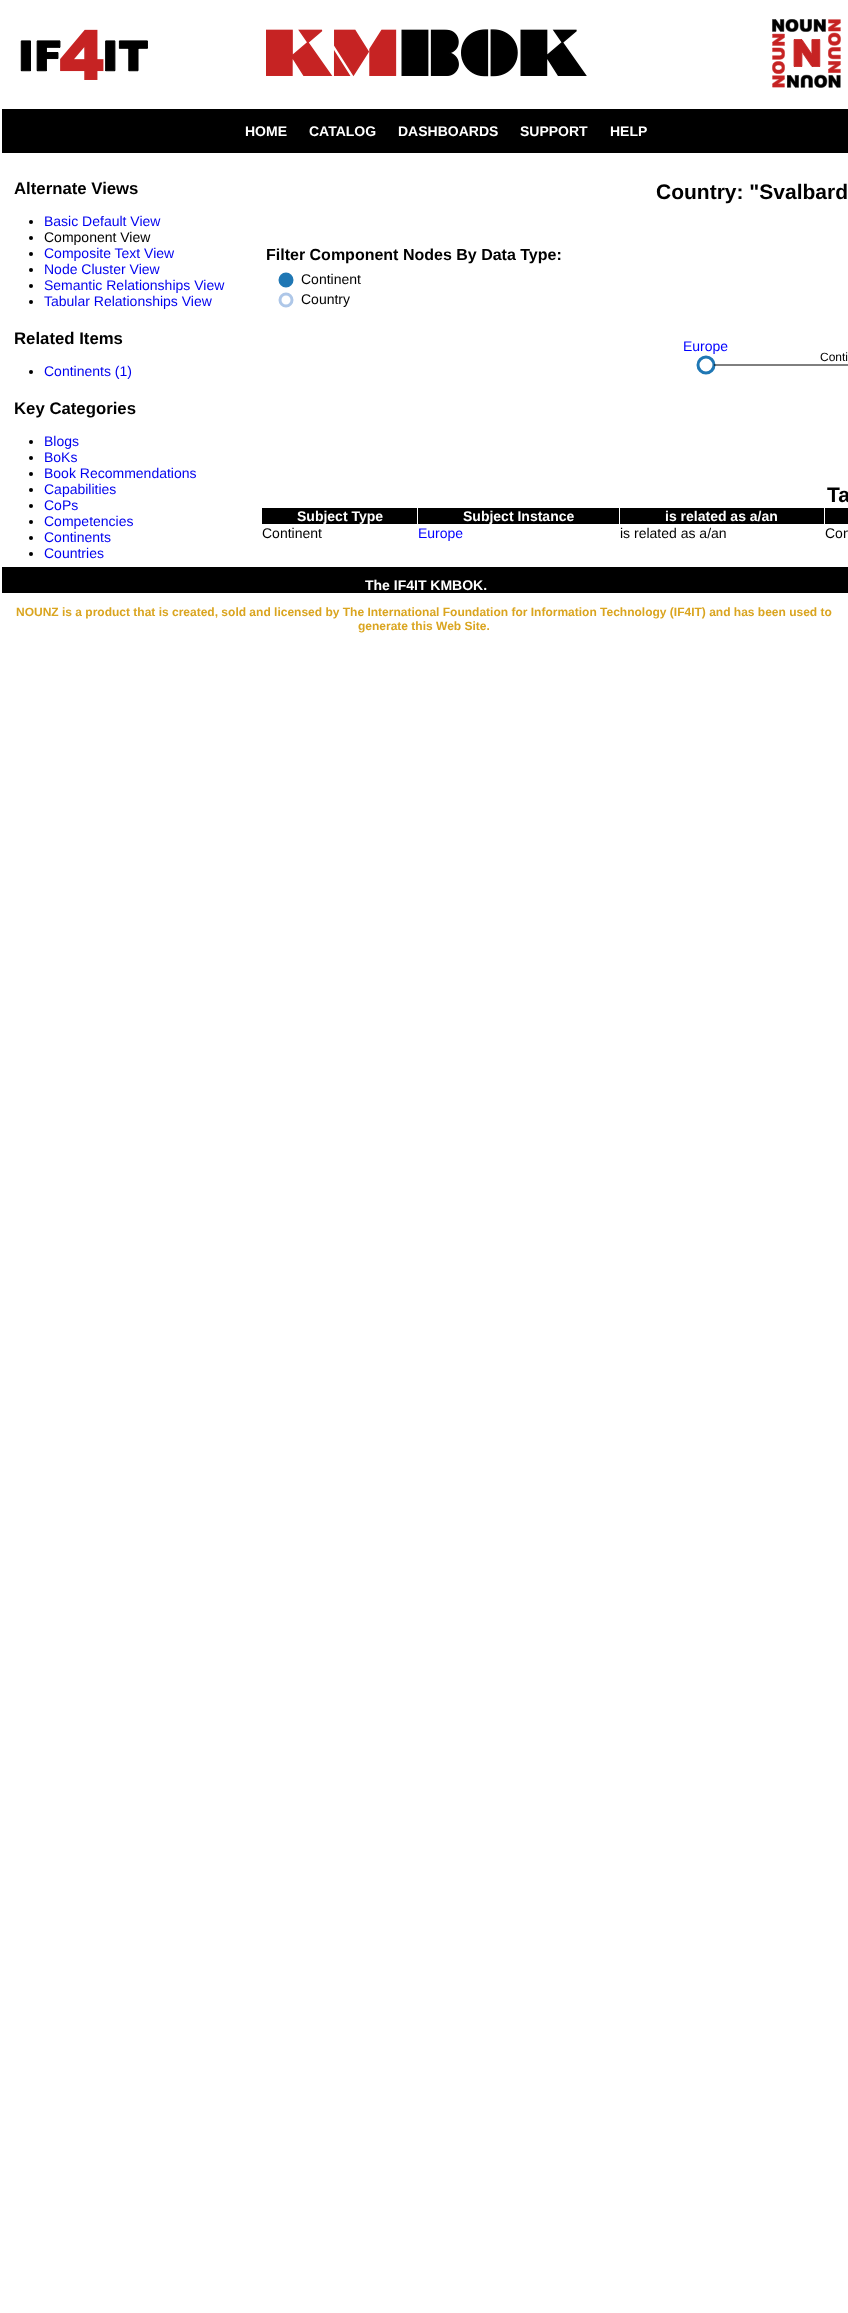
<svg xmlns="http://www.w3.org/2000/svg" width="848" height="2313">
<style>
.a{font:bold 14px Liberation Sans;fill:#fff}
.b{font:bold 16.75px Liberation Sans;fill:#000}
.c{font:14px Liberation Sans;fill:#00e}
.d{font:14px Liberation Sans;fill:#000}
.e{font:bold 21px Liberation Sans;fill:#000}
.f{font:bold 16px Liberation Sans;fill:#000}
.g{font:14px Liberation Sans;fill:#00f}
.h{font:12px Liberation Sans;fill:#000}
.i{font:bold 12px Liberation Sans;fill:#daa520}
</style>
<rect width="100%" height="100%" fill="#fff"/>
<image href="1.png" x="20" y="29" width="128" height="51"/>
<image href="2.png" x="266" y="29" width="321" height="48"/>
<image href="3.png" x="772" y="19" width="69" height="69"/>
<path fill="#000" d="M2 109h846v44H2z"/>
<circle fill="#000" cx="31" cy="222" r="2"/>
<circle fill="#000" cx="31" cy="238" r="2"/>
<circle fill="#000" cx="31" cy="254" r="2"/>
<circle fill="#000" cx="31" cy="270" r="2"/>
<circle fill="#000" cx="31" cy="286" r="2"/>
<circle fill="#000" cx="31" cy="302" r="2"/>
<circle fill="#000" cx="31" cy="372" r="2"/>
<circle fill="#000" cx="31" cy="442" r="2"/>
<circle fill="#000" cx="31" cy="458" r="2"/>
<circle fill="#000" cx="31" cy="474" r="2"/>
<circle fill="#000" cx="31" cy="490" r="2"/>
<circle fill="#000" cx="31" cy="506" r="2"/>
<circle fill="#000" cx="31" cy="522" r="2"/>
<circle fill="#000" cx="31" cy="538" r="2"/>
<circle fill="#000" cx="31" cy="554" r="2"/>
<circle fill="#1f77b4" stroke="#1f77b4" stroke-width="3" cx="286" cy="280" r="6"/>
<circle fill="none" stroke="#aec7e8" stroke-width="3" cx="286" cy="300" r="6"/>
<circle fill="none" stroke="#1f77b4" stroke-width="3" cx="706" cy="365" r="8"/>
<path fill="none" stroke="#000" d="M714 365h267"/>
<path fill="#000" d="M262 508h155v16H262z"/>
<path fill="#000" d="M418 508h201v16H418z"/>
<path fill="#000" d="M620 508h204v16H620z"/>
<path fill="#000" d="M825 508h23v16H825z"/>
<path fill="#000" d="M2 567h846v26H2z"/>
<text class="a" x="245" y="136">HOME</text>
<text class="a" x="309" y="136">CATALOG</text>
<text class="a" x="398" y="136">DASHBOARDS</text>
<text class="a" x="520" y="136">SUPPORT</text>
<text class="a" x="610" y="136">HELP</text>
<text class="b" x="14" y="194">Alternate Views</text>
<text class="c" x="44" y="226">Basic Default View</text>
<text class="d" x="44" y="242">Component View</text>
<text class="c" x="44" y="258">Composite Text View</text>
<text class="c" x="44" y="274">Node Cluster View</text>
<text class="c" x="44" y="290">Semantic Relationships View</text>
<text class="c" x="44" y="306">Tabular Relationships View</text>
<text class="b" x="14" y="344">Related Items</text>
<text class="c" x="44" y="376">Continents (1)</text>
<text class="b" x="14" y="414">Key Categories</text>
<text class="c" x="44" y="446">Blogs</text>
<text class="c" x="44" y="462">BoKs</text>
<text class="c" x="44" y="478">Book Recommendations</text>
<text class="c" x="44" y="494">Capabilities</text>
<text class="c" x="44" y="510">CoPs</text>
<text class="c" x="44" y="526">Competencies</text>
<text class="c" x="44" y="542">Continents</text>
<text class="c" x="44" y="558">Countries</text>
<text class="e" x="656" y="199">Country: "Svalbard</text>
<text class="f" x="266" y="260">Filter Component Nodes By Data Type:</text>
<text class="d" x="301" y="284">Continent</text>
<text class="d" x="301" y="304">Country</text>
<text class="g" x="683" y="351">Europe</text>
<text class="h" x="820" y="361">Conti</text>
<text class="e" x="827" y="502">Ta</text>
<text class="a" x="297" y="521">Subject Type</text>
<text class="a" x="463" y="521">Subject Instance</text>
<text class="a" x="665" y="521">is related as a/an</text>
<text class="d" x="262" y="538">Continent</text>
<text class="g" x="418" y="538">Europe</text>
<text class="d" x="620" y="538">is related as a/an</text>
<text class="d" x="825" y="538">Con</text>
<text class="a" x="365" y="590">The IF4IT KMBOK.</text>
<text class="i" x="16" y="616">NOUNZ is a product that is created, sold and licensed by The International Foundation for Information Technology (IF4IT) and has been used to</text>
<text class="i" x="358" y="630">generate this Web Site.</text>
</svg>
